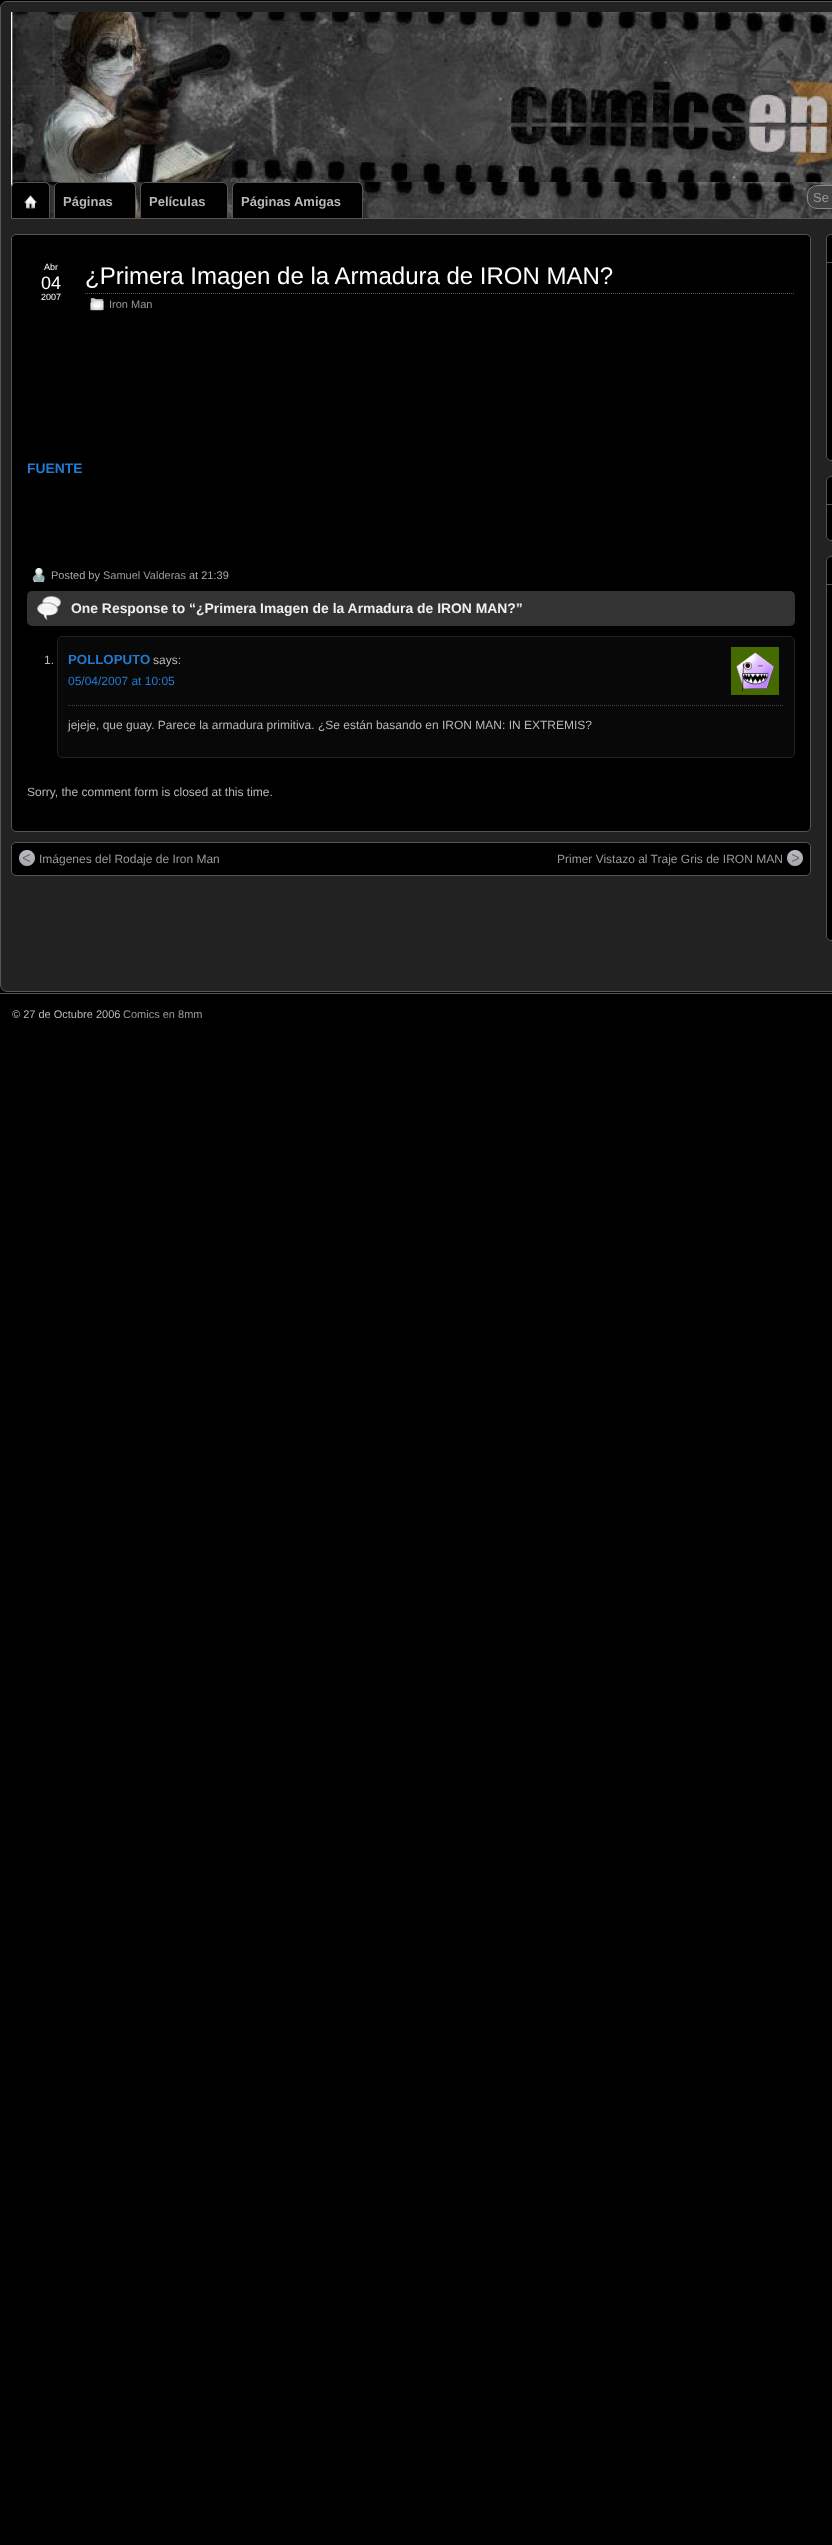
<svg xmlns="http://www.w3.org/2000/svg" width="832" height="2545">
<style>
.a{font:bold 13px Liberation Sans;fill:#b8b8b8}
.b{font:13px Liberation Sans;fill:#999}
.c{font:9px Liberation Sans;fill:#fff}
.d{font:18px Liberation Sans;fill:#fff}
.e{font:24px Liberation Sans;fill:#fff}
.f{font:11px Liberation Sans;fill:#999}
.g{font:bold 13.9px Liberation Sans;fill:#227ad1}
.h{font:11px Liberation Sans;fill:#aaa}
.i{font:bold 13.9px Liberation Sans;fill:#eee}
.j{font:12px Liberation Sans;fill:#b8b8b8}
.k{font:bold 13.25px Liberation Sans;fill:#227ad1}
.l{font:12px Liberation Sans;fill:#227ad1}
.m{font:12px Liberation Sans;fill:#999}
.n{font:11px Liberation Sans;fill:#b8b8b8}
</style>
<rect width="100%" height="100%" fill="#000"/>
<rect fill="#222" stroke="#555" x="0.5" y="1.5" width="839" height="990" rx="6.5"/>
<image href="1.png" x="11" y="12" width="821" height="206"/>
<path fill="#555" d="M50 218h782v1H50z"/>
<path fill="none" stroke="#555" d="M16 182.5h29c2.5 0 4.5 2 4.5 4.5v31.5h-38v-31.5c0-2.5 2-4.5 4.5-4.5z"/>
<path fill="#000" d="M17 183h27c3 0 5 2 5 5v30h-37v-30c0-3 2-5 5-5z"/>
<image href="2.png" x="24" y="195" width="13" height="14"/>
<path fill="none" stroke="#555" d="M59 182.5h72c2.5 0 4.5 2 4.5 4.5v31.5h-81v-31.5c0-2.5 2-4.5 4.5-4.5z"/>
<path fill="#000" d="M60 183h70c3 0 5 2 5 5v30h-80v-30c0-3 2-5 5-5z"/>
<path fill="none" stroke="#555" d="M145 182.5h78c2.5 0 4.5 2 4.5 4.5v31.5h-87v-31.5c0-2.5 2-4.5 4.5-4.5z"/>
<path fill="#000" d="M146 183h76c3 0 5 2 5 5v30h-86v-30c0-3 2-5 5-5z"/>
<path fill="none" stroke="#555" d="M237 182.5h121c2.5 0 4.5 2 4.5 4.5v31.5h-130v-31.5c0-2.5 2-4.5 4.5-4.5z"/>
<path fill="#000" d="M238 183h119c3 0 5 2 5 5v30h-129v-30c0-3 2-5 5-5z"/>
<rect fill="#444" stroke="#888" x="807.5" y="185.5" width="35" height="23" rx="9.5"/>
<rect fill="#000" stroke="#555" x="11.5" y="234.5" width="799" height="597" rx="4.5"/>
<path fill="none" stroke="#555" stroke-dasharray="1 1" d="M85 293.5h710"/>
<image href="3.png" x="90" y="298" width="14" height="13"/>
<image href="4.png" x="32" y="567" width="14" height="16"/>
<rect fill="#333" x="27" y="591" width="768" height="35" rx="5"/>
<image href="5.png" x="37" y="596" width="24" height="24"/>
<rect fill="#080808" stroke="#222" x="57.5" y="636.5" width="737" height="121" rx="4.5"/>
<path fill="none" stroke="#444" stroke-dasharray="1 1" d="M68 705.5h716"/>
<image href="6.png" x="731" y="647" width="48" height="48"/>
<rect fill="#000" stroke="#555" x="11.5" y="842.5" width="799" height="33" rx="4.5"/>
<image href="7.png" x="19" y="850" width="16" height="16"/>
<image href="8.png" x="787" y="850" width="16" height="16"/>
<rect fill="#000" stroke="#555" x="826.5" y="234.5" width="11" height="226" rx="4.5"/>
<path fill="#555" d="M827 262h5v1H827z"/>
<rect fill="#000" stroke="#555" x="826.5" y="476.5" width="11" height="64" rx="4.5"/>
<path fill="#555" d="M827 504h5v1H827z"/>
<rect fill="#000" stroke="#555" x="826.5" y="556.5" width="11" height="384" rx="4.5"/>
<path fill="#555" d="M827 584h5v1H827z"/>
<path fill="#555" d="M0 993h832v1H0z"/>
<text class="a" x="63" y="206">Páginas</text>
<text class="a" x="149" y="206">Películas</text>
<text class="a" x="241" y="206">Páginas Amigas</text>
<text class="b" x="813" y="202">Se</text>
<text class="c" x="44" y="270">Abr</text>
<text class="d" x="41" y="289">04</text>
<text class="c" x="41" y="300">2007</text>
<text class="e" x="85" y="284">¿Primera Imagen de la Armadura de IRON MAN?</text>
<text class="f" x="109" y="308">Iron Man</text>
<text class="g" x="27" y="473">FUENTE</text>
<text class="h" x="51" y="579">Posted by</text>
<text class="f" x="103" y="579">Samuel Valderas</text>
<text class="h" x="189" y="579">at 21:39</text>
<text class="i" x="71" y="613">One Response to “¿Primera Imagen de la Armadura de IRON MAN?”</text>
<text class="j" x="44" y="664">1.</text>
<text class="k" x="68" y="664">POLLOPUTO</text>
<text class="j" x="153" y="664">says:</text>
<text class="l" x="68" y="685">05/04/2007 at 10:05</text>
<text class="j" x="68" y="729">jejeje, que guay. Parece la armadura primitiva. ¿Se están basando en IRON MAN: IN EXTREMIS?</text>
<text class="j" x="27" y="796">Sorry, the comment form is closed at this time.</text>
<text class="m" x="39" y="863">Imágenes del Rodaje de Iron Man</text>
<text class="m" x="557" y="863">Primer Vistazo al Traje Gris de IRON MAN</text>
<text class="n" x="12" y="1018">© 27 de Octubre 2006</text>
<text class="f" x="123" y="1018">Comics en 8mm</text>
</svg>
